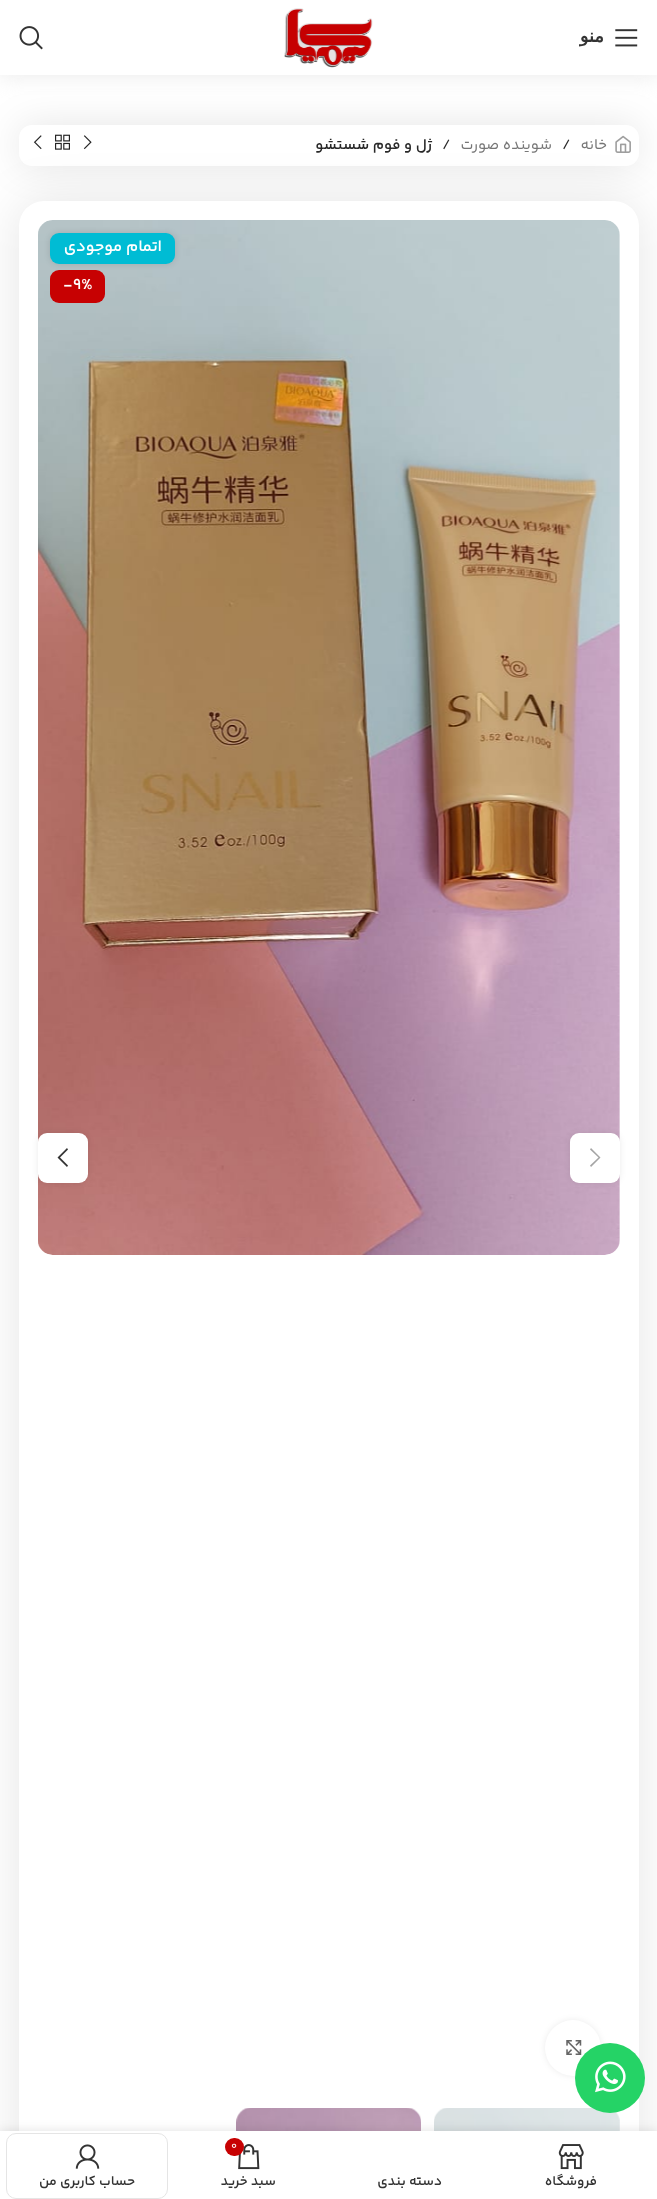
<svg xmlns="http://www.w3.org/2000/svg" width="657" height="2199">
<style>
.a{font:bold 18px DejaVu Sans;direction:rtl;fill:#333}
.b{font:15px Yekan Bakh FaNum;direction:rtl;fill:#767676}
.c{font:15px Yekan Bakh FaNum;fill:#282828}
.d{font:600 15px Yekan Bakh FaNum;direction:rtl;fill:#282828}
.e{font:600 16.25px Yekan Bakh FaNum;direction:rtl;fill:#fff}
.f{font:600 16.25px Yekan Bakh FaNum;fill:#fff}
.g{font:600 13.75px Yekan Bakh FaNum;direction:rtl;fill:#333}
.h{font:11px Yekan Bakh FaNum;fill:#fff}
</style>
<defs>
<clipPath id="clip1"><path d="M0 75h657v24H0z"/></clipPath>
</defs>
<rect width="100%" height="100%" fill="#fff"/>
<g clip-path="url(#clip1)">
<path fill="#eee" filter="blur(10px)" d="M0 3h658v75H0z"/>
</g>
<image href="1.png" x="615" y="29" width="23" height="18"/>
<rect fill="#0000001a" filter="blur(19px)" x="19" y="125" width="620" height="41" rx="13"/>
<image href="2.png" x="284" y="8" width="89" height="60"/>
<image href="3.png" x="19" y="26" width="24" height="24"/>
<rect fill="#fff" x="19" y="125" width="620" height="41" rx="13"/>
<image href="4.png" x="615" y="135" width="16" height="18"/>
<image href="5.png" x="83" y="135" width="9" height="15"/>
<image href="6.png" x="55" y="134" width="15" height="16"/>
<image href="7.png" x="33" y="135" width="9" height="15"/>
<rect fill="#0000001a" filter="blur(25px)" x="19" y="201" width="620" height="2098" rx="25"/>
<rect fill="#fff" x="19" y="201" width="620" height="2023" rx="25"/>
<image href="8.png" x="38" y="220" width="582" height="1035"/>
<rect fill="#c70102" x="50" y="270" width="55" height="33" rx="9"/>
<rect fill="#0000001f" filter="blur(3px)" x="50" y="233" width="125" height="31" rx="9"/>
<rect fill="#00bcd4" x="50" y="233" width="125" height="31" rx="9"/>
<rect fill="#00000014" filter="blur(3px)" x="570" y="1133" width="50" height="50" rx="9"/>
<rect fill="#fff" x="570" y="1133" width="50" height="50" rx="9"/>
<path fill="#a5a5a5" d="M590 1149.5l8.5 8l-8.5 8l1 1.5l9.5-9.5l-9.5-9.5z"/>
<rect fill="#00000014" filter="blur(3px)" x="38" y="1133" width="50" height="50" rx="9"/>
<rect fill="#fff" x="38" y="1133" width="50" height="50" rx="9"/>
<path fill="#333" d="M68 1149.5l-1-1.5l-9.5 9.5l9.5 9.5l1-1.5l-8-8z"/>
<rect fill="#00000014" filter="blur(3px)" x="545" y="2020" width="56" height="56" rx="28"/>
<circle fill="#fff" cx="573" cy="2048" r="28"/>
<image href="9.png" x="566" y="2040" width="16" height="15"/>
<image href="10.png" x="434" y="2108" width="186" height="23"/>
<image href="11.png" x="236" y="2108" width="185" height="23"/>
<circle fill="#25d366" cx="610" cy="2078" r="35"/>
<image href="12.png" x="595" y="2061" width="31" height="32"/>
<path fill="#0000001f" filter="blur(5.5px)" d="M0 2131h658v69H0z"/>
<path fill="#fff" d="M0 2131h657v68H0z"/>
<image href="13.png" x="558" y="2144" width="26" height="26"/>
<image href="14.png" x="238" y="2144" width="22" height="26"/>
<rect fill="#c70102" x="225" y="2138" width="19" height="18" rx="9"/>
<rect fill="none" stroke="#e5e5e5" x="6.5" y="2133.5" width="161" height="65" rx="9.5"/>
<image href="15.png" x="75" y="2144" width="25" height="25"/>
<text class="a" x="604" y="42">منو</text>
<text class="b" x="607" y="149">خانه</text>
<text class="c" x="562" y="149">/</text>
<text class="b" x="552" y="149">شوینده صورت</text>
<text class="c" x="442" y="149">/</text>
<text class="d" x="432" y="149">ژل و فوم شستشو</text>
<text class="e" x="162" y="251">اتمام موجودی</text>
<text class="f" x="63" y="289">-9%</text>
<text class="g" x="597" y="2185">فروشگاه</text>
<text class="g" x="442" y="2185">دسته بندی</text>
<text class="h" x="231" y="2149">0</text>
<text class="g" x="276" y="2185">سبد خرید</text>
<text class="g" x="135" y="2185">حساب کاربری من</text>
</svg>
